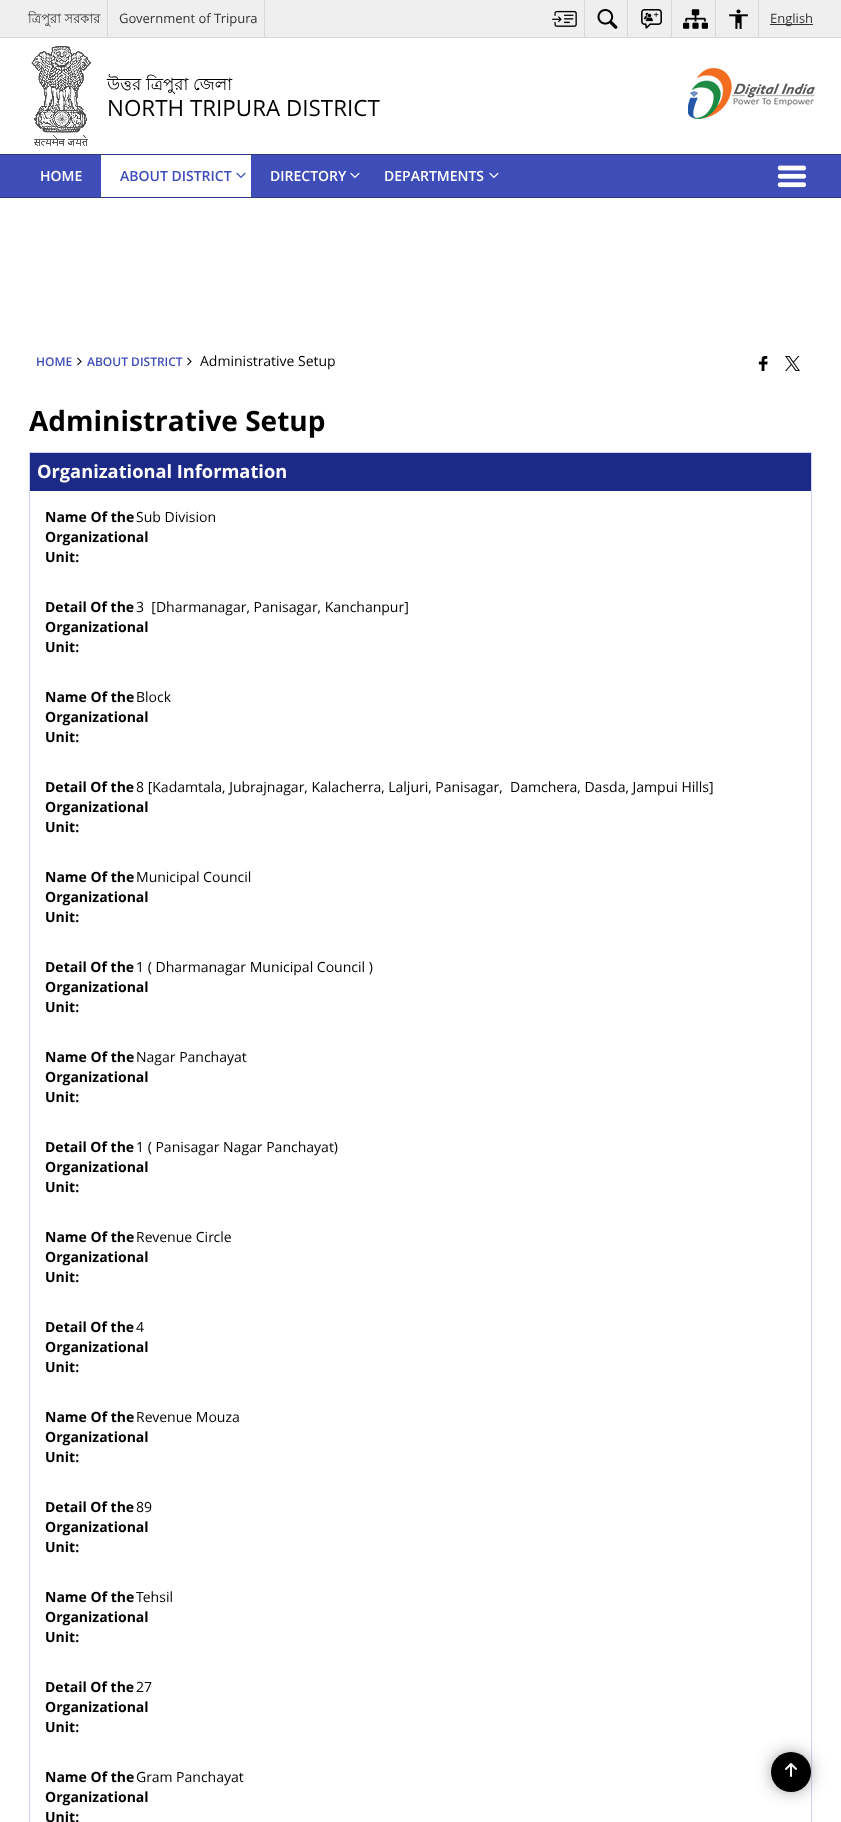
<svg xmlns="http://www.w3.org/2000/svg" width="841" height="1822">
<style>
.a{font:13px Lohit Bengali;fill:#333}
.b{font:13px Open Sans;fill:#333}
.c{font:16.75px Lohit Bengali;fill:#000}
.d{font:22.4px Open Sans;fill:#000}
.e{font:600 14px Open Sans;fill:#fff}
.f{font:600 14px Open Sans;fill:#3f4db8}
.g{font:600 12px Open Sans;fill:#3f4db8}
.h{font:14px Open Sans;fill:#000}
.i{font:bold 28px Open Sans;fill:#000}
.j{font:bold 18.25px Open Sans;fill:#fff}
.k{font:bold 14px Open Sans;fill:#000}
</style>
<rect width="100%" height="100%" fill="#fff"/>
<path fill="#efefef" d="M0 0h841v37H0z"/>
<path fill="#d8d8d8" d="M0 37h841v1H0z"/>
<path fill="#d8d8d8" d="M107 0h1v37H107z"/>
<path fill="#d8d8d8" d="M264 0h1v37H264z"/>
<path fill="#d8d8d8" d="M584 0h1v37H584z"/>
<image href="1.png" x="552" y="10" width="25" height="17"/>
<path fill="#d8d8d8" d="M627 0h1v37H627z"/>
<image href="2.png" x="597" y="9" width="21" height="20"/>
<path fill="#d8d8d8" d="M671 0h1v37H671z"/>
<image href="3.png" x="641" y="9" width="21" height="20"/>
<path fill="#d8d8d8" d="M715 0h1v37H715z"/>
<image href="4.png" x="683" y="9" width="25" height="20"/>
<path fill="#d8d8d8" d="M758 0h1v37H758z"/>
<image href="5.png" x="729" y="9" width="19" height="20"/>
<path fill="#333" d="M770 24h43v1H770z"/>
<image href="6.png" x="31" y="46" width="60" height="100"/>
<image href="7.png" x="688" y="68" width="127" height="51"/>
<path fill="#3f4db8" d="M0 155h841v42H0z"/>
<path fill="#2c3681" d="M0 154h841v1H0z"/>
<path fill="#2c3681" d="M0 197h841v1H0z"/>
<path fill="#fff" d="M101 155h150v42H101z"/>
<image href="8.png" x="236" y="172" width="10" height="7"/>
<image href="9.png" x="350" y="172" width="10" height="7"/>
<image href="9.png" x="489" y="172" width="10" height="7"/>
<image href="10.png" x="777" y="165" width="30" height="23"/>
<image href="11.png" x="77" y="357" width="5" height="9"/>
<image href="11.png" x="187" y="357" width="5" height="9"/>
<image href="12.png" x="758" y="356" width="10" height="15"/>
<image href="13.png" x="785" y="356" width="15" height="15"/>
<path fill="#cdd3fb" d="M29 452h783v1H29z"/>
<path fill="#cdd3fb" d="M811 452h1v1370H811z"/>
<path fill="#cdd3fb" d="M29 452h1v1370H29z"/>
<path fill="#1c2986" d="M30 453h781v38H30z"/>
<rect fill="#3c3c3c" filter="blur(9.5px)" x="776" y="1757" width="30" height="30" rx="15"/>
<circle fill="#000" cx="791" cy="1772" r="20"/>
<image href="14.png" x="785" y="1763" width="12" height="14"/>
<text class="a" x="28" y="23">ত্রিপুরা সরকার</text>
<text class="b" x="119" y="23">Government of Tripura</text>
<text class="b" x="770" y="23">English</text>
<text class="c" x="107" y="90">উত্তর ত্রিপুরা জেলা</text>
<text class="d" x="107" y="116">NORTH TRIPURA DISTRICT</text>
<text class="e" x="40" y="181">HOME</text>
<text class="f" x="120" y="181">ABOUT DISTRICT</text>
<text class="e" x="270" y="181">DIRECTORY</text>
<text class="e" x="384" y="181">DEPARTMENTS</text>
<text class="g" x="36" y="366">HOME</text>
<text class="g" x="87" y="366">ABOUT DISTRICT</text>
<text class="h" x="200" y="366">Administrative Setup</text>
<text class="i" x="29" y="431">Administrative Setup</text>
<text class="j" x="37" y="478">Organizational Information</text>
<text class="k" x="45" y="522">Name Of the</text>
<text class="k" x="45" y="542">Organizational</text>
<text class="k" x="45" y="562">Unit:</text>
<text class="h" x="136" y="522">Sub Division</text>
<text class="k" x="45" y="612">Detail Of the</text>
<text class="k" x="45" y="632">Organizational</text>
<text class="k" x="45" y="652">Unit:</text>
<text class="h" xml:space="preserve" x="136" y="612">3  [Dharmanagar, Panisagar, Kanchanpur]</text>
<text class="k" x="45" y="702">Name Of the</text>
<text class="k" x="45" y="722">Organizational</text>
<text class="k" x="45" y="742">Unit:</text>
<text class="h" x="136" y="702">Block</text>
<text class="k" x="45" y="792">Detail Of the</text>
<text class="k" x="45" y="812">Organizational</text>
<text class="k" x="45" y="832">Unit:</text>
<text class="h" xml:space="preserve" x="136" y="792">8 [Kadamtala, Jubrajnagar, Kalacherra, Laljuri, Panisagar,  Damchera, Dasda, Jampui Hills]</text>
<text class="k" x="45" y="882">Name Of the</text>
<text class="k" x="45" y="902">Organizational</text>
<text class="k" x="45" y="922">Unit:</text>
<text class="h" x="136" y="882">Municipal Council</text>
<text class="k" x="45" y="972">Detail Of the</text>
<text class="k" x="45" y="992">Organizational</text>
<text class="k" x="45" y="1012">Unit:</text>
<text class="h" x="136" y="972">1 ( Dharmanagar Municipal Council )</text>
<text class="k" x="45" y="1062">Name Of the</text>
<text class="k" x="45" y="1082">Organizational</text>
<text class="k" x="45" y="1102">Unit:</text>
<text class="h" x="136" y="1062">Nagar Panchayat</text>
<text class="k" x="45" y="1152">Detail Of the</text>
<text class="k" x="45" y="1172">Organizational</text>
<text class="k" x="45" y="1192">Unit:</text>
<text class="h" x="136" y="1152">1 ( Panisagar Nagar Panchayat)</text>
<text class="k" x="45" y="1242">Name Of the</text>
<text class="k" x="45" y="1262">Organizational</text>
<text class="k" x="45" y="1282">Unit:</text>
<text class="h" x="136" y="1242">Revenue Circle</text>
<text class="k" x="45" y="1332">Detail Of the</text>
<text class="k" x="45" y="1352">Organizational</text>
<text class="k" x="45" y="1372">Unit:</text>
<text class="h" x="136" y="1332">4</text>
<text class="k" x="45" y="1422">Name Of the</text>
<text class="k" x="45" y="1442">Organizational</text>
<text class="k" x="45" y="1462">Unit:</text>
<text class="h" x="136" y="1422">Revenue Mouza</text>
<text class="k" x="45" y="1512">Detail Of the</text>
<text class="k" x="45" y="1532">Organizational</text>
<text class="k" x="45" y="1552">Unit:</text>
<text class="h" x="136" y="1512">89</text>
<text class="k" x="45" y="1602">Name Of the</text>
<text class="k" x="45" y="1622">Organizational</text>
<text class="k" x="45" y="1642">Unit:</text>
<text class="h" x="136" y="1602">Tehsil</text>
<text class="k" x="45" y="1692">Detail Of the</text>
<text class="k" x="45" y="1712">Organizational</text>
<text class="k" x="45" y="1732">Unit:</text>
<text class="h" x="136" y="1692">27</text>
<text class="k" x="45" y="1782">Name Of the</text>
<text class="k" x="45" y="1802">Organizational</text>
<text class="k" x="45" y="1822">Unit:</text>
<text class="h" x="136" y="1782">Gram Panchayat</text>
</svg>
